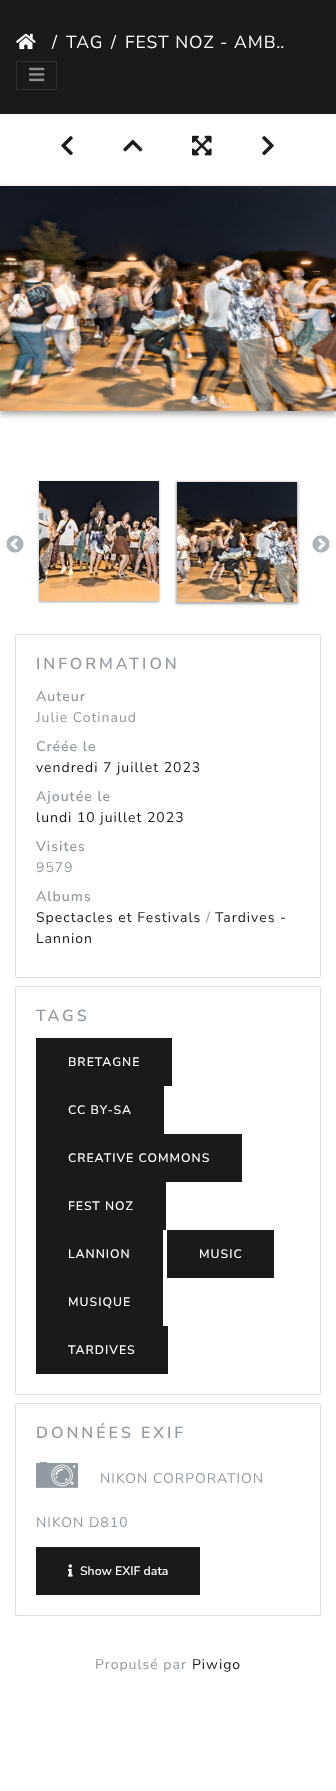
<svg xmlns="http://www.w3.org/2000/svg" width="336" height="1791">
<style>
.a{font:17.5px Nunito Sans;letter-spacing:1px;fill:#fff}
.b{font:600 16px Nunito Sans;letter-spacing:3px;fill:#919aa1}
.c{font:600 14px Nunito Sans;letter-spacing:1px;fill:#919aa1}
.d{font:14px Nunito Sans;letter-spacing:1px;fill:#919aa1}
.e{font:14px Nunito Sans;letter-spacing:1px;fill:#1a1a1a}
.f{font:600 12.25px Nunito Sans;letter-spacing:1px;fill:#fff}
.g{font:600 12.25px Nunito Sans;fill:#fff}
</style>
<defs>
<clipPath id="clip1"><path d="M103 29h181v27H103z"/></clipPath>
</defs>
<rect width="100%" height="100%" fill="#fff"/>
<path fill="#1a1a1a" d="M0 0h336v114H0z"/>
<image href="1.png" x="16" y="33" width="20" height="17"/>
<path fill="none" stroke="#313131" d="M16.5 61.5h40v28H16.5z"/>
<image href="2.png" x="29" y="67" width="16" height="15"/>
<image href="3.png" x="61" y="136" width="12" height="20"/>
<image href="4.png" x="123" y="139" width="20" height="13"/>
<image href="5.png" x="192" y="135" width="20" height="21"/>
<image href="6.png" x="262" y="136" width="12" height="20"/>
<path fill="#0000003b" filter="blur(3px)" d="M0 189h336v225H0z"/>
<path fill="#00000029" filter="blur(3px)" d="M0 189h336v225H0z"/>
<image href="7.png" x="0" y="186" width="336" height="225"/>
<image href="8.png" x="6" y="535" width="18" height="18"/>
<path fill="#0000001f" filter="blur(1.5px)" d="M39 482h120v120H39z"/>
<path fill="#0000003d" filter="blur(1px)" d="M39 482h120v120H39z"/>
<image href="9.png" x="39" y="481" width="120" height="120"/>
<path fill="#0000001f" filter="blur(1.5px)" d="M176 482h122v122H176z"/>
<path fill="#0000003d" filter="blur(1px)" d="M176 482h122v122H176z"/>
<image href="10.png" x="177" y="482" width="120" height="120"/>
<image href="11.png" x="312" y="535" width="18" height="18"/>
<rect fill="none" stroke="#dfdfdf" x="15.5" y="634.5" width="305" height="343" rx="1.5"/>
<rect fill="none" stroke="#dfdfdf" x="15.5" y="986.5" width="305" height="408" rx="1.5"/>
<path fill="#1a1a1a" d="M36 1038h136v48H36z"/>
<path fill="#1a1a1a" d="M36 1086h128v48H36z"/>
<path fill="#1a1a1a" d="M36 1134h206v48H36z"/>
<path fill="#1a1a1a" d="M36 1182h130v48H36z"/>
<path fill="#1a1a1a" d="M36 1230h127v96H36z"/>
<path fill="#1a1a1a" d="M167 1230h107v48H167z"/>
<path fill="#1a1a1a" d="M36 1326h132v48H36z"/>
<rect fill="none" stroke="#dfdfdf" x="15.5" y="1403.5" width="305" height="212" rx="1.5"/>
<image href="12.png" x="36" y="1462" width="43" height="26"/>
<path fill="#1a1a1a" d="M36 1547h164v48H36z"/>
<image href="13.png" x="68" y="1564" width="5" height="13"/>
<text class="a" x="52" y="48">/</text>
<text class="a" x="66" y="48">TAG</text>
<text class="a" x="111" y="48">/</text>
<g clip-path="url(#clip1)">
<text class="a" x="125" y="48">FEST NOZ - AMB…</text>
</g>
<text class="b" x="36" y="669">INFORMATION</text>
<text class="c" x="36" y="701">Auteur</text>
<text class="d" x="36" y="722">Julie Cotinaud</text>
<text class="c" x="36" y="751">Créée le</text>
<text class="e" x="36" y="772">vendredi 7 juillet 2023</text>
<text class="c" x="36" y="801">Ajoutée le</text>
<text class="e" x="36" y="822">lundi 10 juillet 2023</text>
<text class="c" x="36" y="851">Visites</text>
<text class="d" x="36" y="872">9579</text>
<text class="c" x="36" y="901">Albums</text>
<text class="e" x="36" y="922">Spectacles et Festivals</text>
<text class="d" x="206" y="922">/</text>
<text class="e" x="215" y="922">Tardives -</text>
<text class="e" x="36" y="943">Lannion</text>
<text class="b" x="36" y="1021">TAGS</text>
<text class="f" x="68" y="1066">BRETAGNE</text>
<text class="f" x="68" y="1114">CC BY-SA</text>
<text class="f" x="68" y="1162">CREATIVE COMMONS</text>
<text class="f" x="68" y="1210">FEST NOZ</text>
<text class="f" x="68" y="1258">LANNION</text>
<text class="f" x="199" y="1258">MUSIC</text>
<text class="f" x="68" y="1306">MUSIQUE</text>
<text class="f" x="68" y="1354">TARDIVES</text>
<text class="b" x="36" y="1438">DONNÉES EXIF</text>
<text class="d" x="100" y="1483">NIKON CORPORATION</text>
<text class="d" x="36" y="1527">NIKON D810</text>
<text class="g" x="80" y="1575">Show EXIF data</text>
<text class="d" x="95" y="1669">Propulsé par</text>
<text class="e" x="192" y="1669">Piwigo</text>
</svg>
